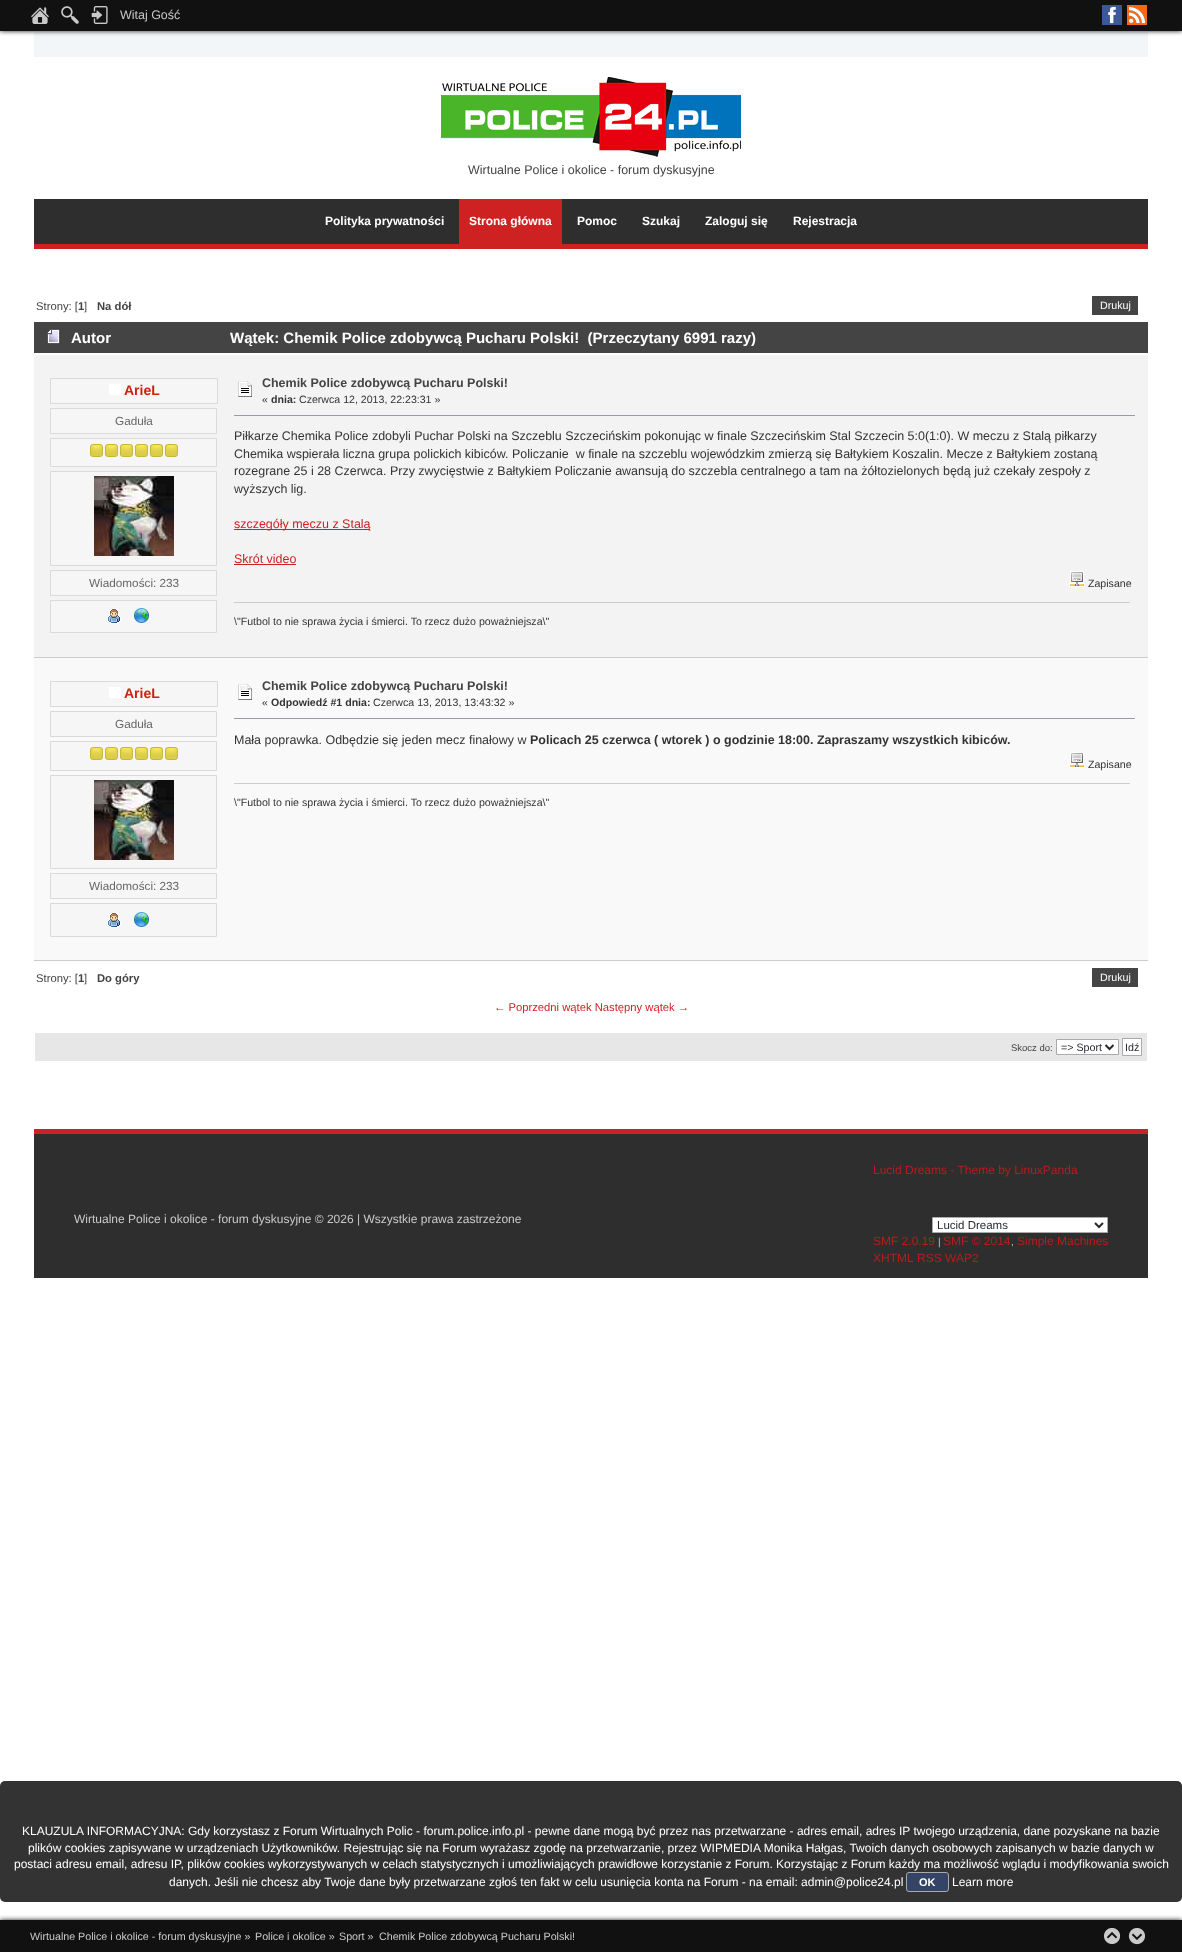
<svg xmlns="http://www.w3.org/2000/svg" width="1182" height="1952">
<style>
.a{font:12.48px Liberation Sans;fill:#cacaca}
.b{font:12.48px Liberation Sans;fill:#444}
.c{font:bold 12px Liberation Sans;fill:#fff}
.d{font:11.25px Liberation Sans;fill:#444}
.e{font:bold 11.25px Liberation Sans;fill:#444}
.f{font:10.7px Liberation Sans;fill:#fff}
.g{font:bold 15px Liberation Sans;fill:#fff}
.h{font:bold 14px Liberation Sans;fill:#cd2112}
.i{font:11.75px Liberation Sans;fill:#666}
.j{font:bold 12.48px Liberation Sans;fill:#444}
.k{font:10.6px Liberation Sans;fill:#333}
.l{font:bold 10.6px Liberation Sans;fill:#333}
.m{font:12.48px Liberation Sans;fill:#333}
.n{font:12.48px Liberation Sans;fill:#cd2122}
.o{font:bold 12.48px Liberation Sans;fill:#333}
.p{font:11.25px Liberation Sans;fill:#cd2122}
.q{font:9.5px Liberation Sans;fill:#444}
.r{font:10.7px Liberation Sans;fill:#262a2f}
.s{font:12px Liberation Sans;fill:#cacaca}
.t{font:12px Liberation Sans;fill:#b71d1e}
.u{font:11.5px Liberation Sans;fill:#262a2f}
.v{font:10px Liberation Sans;fill:#cacaca}
.w{font:12px Liberation Sans;fill:#fff}
.x{font:bold 11px Liberation Sans;fill:#fff}
.y{font:10.7px Liberation Sans;fill:#cacaca}
</style>
<rect width="100%" height="100%" fill="#fff"/>
<path fill="#f2f6f8" d="M34 32h1114v25H34z"/>
<path fill="#000000e6" filter="blur(2.5px)" d="M0 0h1182v31H0z"/>
<path fill="#111" d="M0 0h1182v31H0z"/>
<image href="1.png" x="31" y="7" width="18" height="17"/>
<image href="2.png" x="61" y="6" width="18" height="18"/>
<image href="3.png" x="91" y="6" width="17" height="18"/>
<path fill="#3b5998" d="M1102 5h20v20H1102z"/>
<image href="4.png" x="1108" y="6" width="8" height="18"/>
<path fill="#f86811" d="M1127 5h20v20H1127z"/>
<image href="5.png" x="1128" y="6" width="18" height="18"/>
<image href="6.png" x="441" y="77" width="300" height="80"/>
<path fill="#2e2e2e" d="M34 199h1114v45H34z"/>
<path fill="#cd2122" d="M34 244h1114v5H34z"/>
<path fill="#cd2122" d="M459 199h103v45H459z"/>
<rect fill="#444" x="1092" y="296" width="46" height="19" rx="0.5"/>
<rect fill="#444" x="1100" y="296" width="38" height="19" rx="1"/>
<path fill="#444" d="M34 322h1114v31H34z"/>
<image href="7.png" x="47" y="329" width="13" height="15"/>
<path fill="#f3f3f3" d="M34 355h1114v302H34z"/>
<path fill="#f6f6f6" stroke="#dadada" d="M50.5 378.5h167v25H50.5z"/>
<path fill="#fff" d="M109 384h12v11H109z"/>
<path fill="#f6f6f6" stroke="#dadada" d="M50.5 408.5h166v25H50.5z"/>
<path fill="#f6f6f6" stroke="#dadada" d="M50.5 438.5h166v28H50.5z"/>
<image href="8.png" x="90" y="444" width="13" height="13"/>
<image href="8.png" x="105" y="444" width="13" height="13"/>
<image href="8.png" x="120" y="444" width="13" height="13"/>
<image href="8.png" x="135" y="444" width="13" height="13"/>
<image href="8.png" x="150" y="444" width="13" height="13"/>
<image href="8.png" x="165" y="444" width="13" height="13"/>
<path fill="#f6f6f6" stroke="#dadada" d="M50.5 471.5h166v94H50.5z"/>
<image href="9.png" x="94" y="476" width="80" height="80"/>
<path fill="#f6f6f6" stroke="#dadada" d="M50.5 570.5h166v25H50.5z"/>
<path fill="#f6f6f6" stroke="#dadada" d="M50.5 600.5h166v32H50.5z"/>
<image href="10.png" x="107" y="608" width="14" height="16"/>
<image href="11.png" x="134" y="608" width="15" height="15"/>
<image href="12.png" x="238" y="381" width="14" height="16"/>
<path fill="#99a" d="M234 415h901v1H234z"/>
<path fill="#cd2122" d="M234 529h136v1H234z"/>
<path fill="#cd2122" d="M234 564h62v1H234z"/>
<image href="13.png" x="1069" y="571" width="16" height="16"/>
<path fill="#ccc" d="M234 602h896v1H234z"/>
<path fill="#ccc" d="M34 657h1114v1H34z"/>
<path fill="#f9f9f9" d="M34 658h1114v302H34z"/>
<path fill="#f6f6f6" stroke="#dadada" d="M50.5 681.5h167v25H50.5z"/>
<path fill="#fff" d="M109 687h12v11H109z"/>
<path fill="#f6f6f6" stroke="#dadada" d="M50.5 711.5h166v25H50.5z"/>
<path fill="#f6f6f6" stroke="#dadada" d="M50.5 741.5h166v29H50.5z"/>
<image href="8.png" x="90" y="747" width="13" height="13"/>
<image href="8.png" x="105" y="747" width="13" height="13"/>
<image href="8.png" x="120" y="747" width="13" height="13"/>
<image href="8.png" x="135" y="747" width="13" height="13"/>
<image href="8.png" x="150" y="747" width="13" height="13"/>
<image href="8.png" x="165" y="747" width="13" height="13"/>
<path fill="#f6f6f6" stroke="#dadada" d="M50.5 775.5h166v93H50.5z"/>
<image href="9.png" x="94" y="780" width="80" height="80"/>
<path fill="#f6f6f6" stroke="#dadada" d="M50.5 873.5h166v25H50.5z"/>
<path fill="#f6f6f6" stroke="#dadada" d="M50.5 903.5h166v33H50.5z"/>
<image href="10.png" x="107" y="912" width="14" height="16"/>
<image href="11.png" x="134" y="912" width="15" height="15"/>
<image href="14.png" x="238" y="684" width="14" height="16"/>
<path fill="#99a" d="M234 718h901v1H234z"/>
<image href="15.png" x="1069" y="752" width="16" height="16"/>
<path fill="#ccc" d="M234 783h896v1H234z"/>
<path fill="#ccc" d="M34 960h1114v1H34z"/>
<rect fill="#444" x="1092" y="968" width="46" height="19" rx="0.5"/>
<rect fill="#444" x="1100" y="968" width="38" height="19" rx="1"/>
<path fill="#e7e7e7" d="M35 1033h1112v28H35z"/>
<path fill="#fff" stroke="#aaa" d="M1056.5 1039.5h62v15H1056.5z"/>
<path fill="none" stroke="#262a2f" stroke-width="2" d="M1105.5 1045l4 4l4-4"/>
<path fill="#fff" stroke="#aaa" d="M1122.5 1038.5h19v17H1122.5z"/>
<path fill="#2e2e2e" d="M34 1134h1114v144H34z"/>
<path fill="#cd2122" d="M34 1129h1114v5H34z"/>
<path fill="#fff" stroke="#aaa" d="M932.5 1217.5h175v15H932.5z"/>
<path fill="none" stroke="#262a2f" stroke-width="2" d="M1095 1223l4 4l4-4"/>
<rect fill="#333" y="1781" width="1182" height="121" rx="5"/>
<rect fill="#346" stroke="#aaa" x="906.5" y="1872.5" width="42" height="19" rx="2.5"/>
<path fill="#000000e6" filter="blur(2.5px)" d="M0 1920h1182v32H0z"/>
<path fill="#111" d="M0 1920h1182v32H0z"/>
<image href="16.png" x="1104" y="1927" width="17" height="17"/>
<image href="17.png" x="1128" y="1927" width="17" height="18"/>
<text class="a" x="120" y="19">Witaj Gość</text>
<text class="b" x="468" y="174">Wirtualne Police i okolice - forum dyskusyjne</text>
<text class="c" x="325" y="225">Polityka prywatności</text>
<text class="c" x="469" y="225">Strona główna</text>
<text class="c" x="577" y="225">Pomoc</text>
<text class="c" x="642" y="225">Szukaj</text>
<text class="c" x="705" y="225">Zaloguj się</text>
<text class="c" x="793" y="225">Rejestracja</text>
<text class="d" x="36" y="310">Strony: [</text>
<text class="e" x="78" y="310">1</text>
<text class="d" x="84" y="310">]</text>
<text class="e" x="97" y="310">Na dół</text>
<text class="f" x="1100" y="309">Drukuj</text>
<text class="g" x="71" y="343">Autor</text>
<text class="g" xml:space="preserve" x="230" y="343">Wątek: Chemik Police zdobywcą Pucharu Polski!  (Przeczytany 6991 razy)</text>
<text class="h" x="124" y="395">ArieL</text>
<text class="i" x="115" y="425">Gaduła</text>
<text class="i" x="89" y="587">Wiadomości: 233</text>
<text class="j" x="262" y="387">Chemik Police zdobywcą Pucharu Polski!</text>
<text class="k" x="262" y="403">«</text>
<text class="l" x="271" y="403">dnia:</text>
<text class="k" x="299" y="403">Czerwca 12, 2013, 22:23:31 »</text>
<text class="m" x="234" y="440">Piłkarze Chemika Police zdobyli Puchar Polski na Szczeblu Szczecińskim pokonując w finale Szczecińskim Stal Szczecin 5:0(1:0). W meczu z Stalą piłkarzy</text>
<text class="m" xml:space="preserve" x="234" y="458">Chemika wspierała liczna grupa polickich kibiców. Policzanie  w finale na szczeblu wojewódzkim zmierzą się Bałtykiem Koszalin. Mecze z Bałtykiem zostaną</text>
<text class="m" x="234" y="475">rozegrane 25 i 28 Czerwca. Przy zwycięstwie z Bałtykiem Policzanie awansują do szczebla centralnego a tam na żółtozielonych będą już czekały zespoły z</text>
<text class="m" x="234" y="493">wyższych lig.</text>
<text class="n" x="234" y="528">szczegóły meczu z Stalą</text>
<text class="n" x="234" y="563">Skrót video</text>
<text class="k" x="1088" y="587">Zapisane</text>
<text class="k" x="234" y="625">\"Futbol to nie sprawa życia i śmierci. To rzecz dużo poważniejsza\"</text>
<text class="h" x="124" y="698">ArieL</text>
<text class="i" x="115" y="728">Gaduła</text>
<text class="i" x="89" y="890">Wiadomości: 233</text>
<text class="j" x="262" y="690">Chemik Police zdobywcą Pucharu Polski!</text>
<text class="k" x="262" y="706">«</text>
<text class="l" x="271" y="706">Odpowiedź #1 dnia:</text>
<text class="k" x="373" y="706">Czerwca 13, 2013, 13:43:32 »</text>
<text class="m" x="234" y="744">Mała poprawka. Odbędzie się jeden mecz finałowy w</text>
<text class="o" x="530" y="744">Policach 25 czerwca ( wtorek ) o godzinie 18:00. Zapraszamy wszystkich kibiców.</text>
<text class="k" x="1088" y="768">Zapisane</text>
<text class="k" x="234" y="806">\"Futbol to nie sprawa życia i śmierci. To rzecz dużo poważniejsza\"</text>
<text class="d" x="36" y="982">Strony: [</text>
<text class="e" x="78" y="982">1</text>
<text class="d" x="84" y="982">]</text>
<text class="e" x="97" y="982">Do góry</text>
<text class="f" x="1100" y="981">Drukuj</text>
<text class="p" x="494" y="1011">← Poprzedni wątek Następny wątek →</text>
<text class="q" x="1011" y="1051">Skocz do:</text>
<text class="r" x="1061" y="1051">=&gt; Sport</text>
<text class="r" x="1125" y="1051">Idź</text>
<text class="s" x="74" y="1223">Wirtualne Police i okolice - forum dyskusyjne © 2026 | Wszystkie prawa zastrzeżone</text>
<text class="t" x="873" y="1174">Lucid Dreams - Theme by LinuxPanda</text>
<text class="u" x="937" y="1229">Lucid Dreams</text>
<text class="t" x="873" y="1245">SMF 2.0.19</text>
<text class="v" x="938" y="1245">|</text>
<text class="t" x="943" y="1245">SMF © 2014</text>
<text class="v" x="1011" y="1245">,</text>
<text class="t" x="1017" y="1245">Simple Machines</text>
<text class="t" x="873" y="1262">XHTML</text>
<text class="t" x="917" y="1262">RSS WAP2</text>
<text class="w" x="22" y="1835">KLAUZULA INFORMACYJNA: Gdy korzystasz z Forum Wirtualnych Polic - forum.police.info.pl - pewne dane mogą być przez nas przetwarzane - adres email, adres IP twojego urządzenia, dane pozyskane na bazie</text>
<text class="w" x="28" y="1852">plików cookies zapisywane w urządzeniach Użytkowników. Rejestrując się na Forum wyrażasz zgodę na przetwarzanie, przez WIPMEDIA Monika Hałgas, Twoich danych osobowych zapisanych w bazie danych w</text>
<text class="w" x="14" y="1868">postaci adresu email, adresu IP, plików cookies wykorzystywanych w celach statystycznych i umożliwiających prawidłowe korzystanie z Forum. Korzystając z Forum każdy ma możliwość wglądu i modyfikowania swoich</text>
<text class="w" x="169" y="1886">danych. Jeśli nie chcesz aby Twoje dane były przetwarzane zgłoś ten fakt w celu usunięcia konta na Forum - na email: admin@police24.pl</text>
<text class="x" x="919" y="1886">OK</text>
<text class="w" x="952" y="1886">Learn more</text>
<text class="y" x="30" y="1940">Wirtualne Police i okolice - forum dyskusyjne »</text>
<text class="y" x="255" y="1940">Police i okolice »</text>
<text class="y" x="339" y="1940">Sport »</text>
<text class="y" x="379" y="1940">Chemik Police zdobywcą Pucharu Polski!</text>
</svg>
